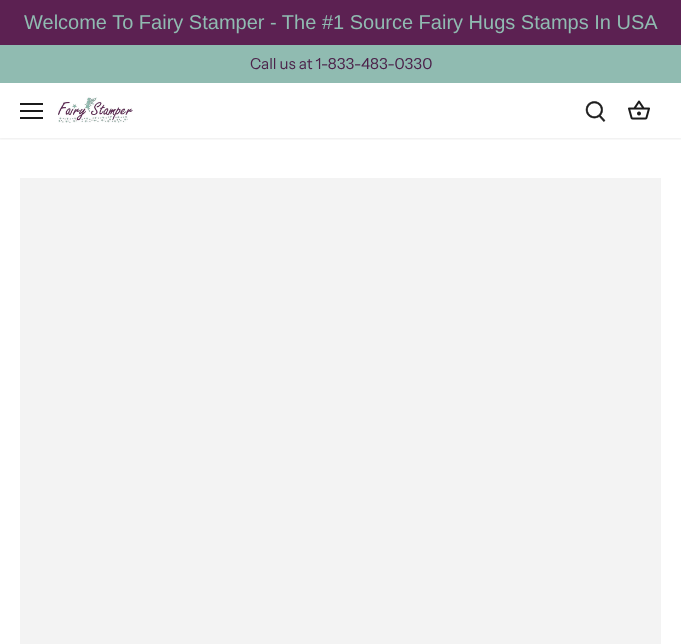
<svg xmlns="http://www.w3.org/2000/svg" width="681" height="644">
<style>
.a{font:20px Liberation Sans;fill:#90bbb1}
.b{font:15.25px Instrument Sans;fill:#4c224a}
</style>
<defs>
<clipPath id="clip1"><path d="M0 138h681v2H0z"/></clipPath>
</defs>
<rect width="100%" height="100%" fill="#fff"/>
<path fill="#5c2152" d="M0 0h681v45H0z"/>
<g clip-path="url(#clip1)">
<path fill="#00000014" filter="blur(1.5px)" d="M-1 82h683v57H-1z"/>
</g>
<path fill="#90bbb1" d="M0 45h681v38H0z"/>
<path fill="#1b1b1b" d="M20 103h23v2H20z"/>
<path fill="#1b1b1b" d="M20 110h23v2H20z"/>
<path fill="#1b1b1b" d="M20 117h23v2H20z"/>
<image href="1.png" x="58" y="97" width="75" height="26"/>
<image href="2.png" x="585" y="101" width="21" height="21"/>
<image href="3.png" x="628" y="100" width="22" height="20"/>
<path fill="#f3f3f3" d="M20 178h641v466H20z"/>
<text class="a" x="24" y="29">Welcome To Fairy Stamper - The #1 Source Fairy Hugs Stamps In USA</text>
<text class="b" x="250" y="69">Call us at 1-833-483-0330</text>
</svg>
